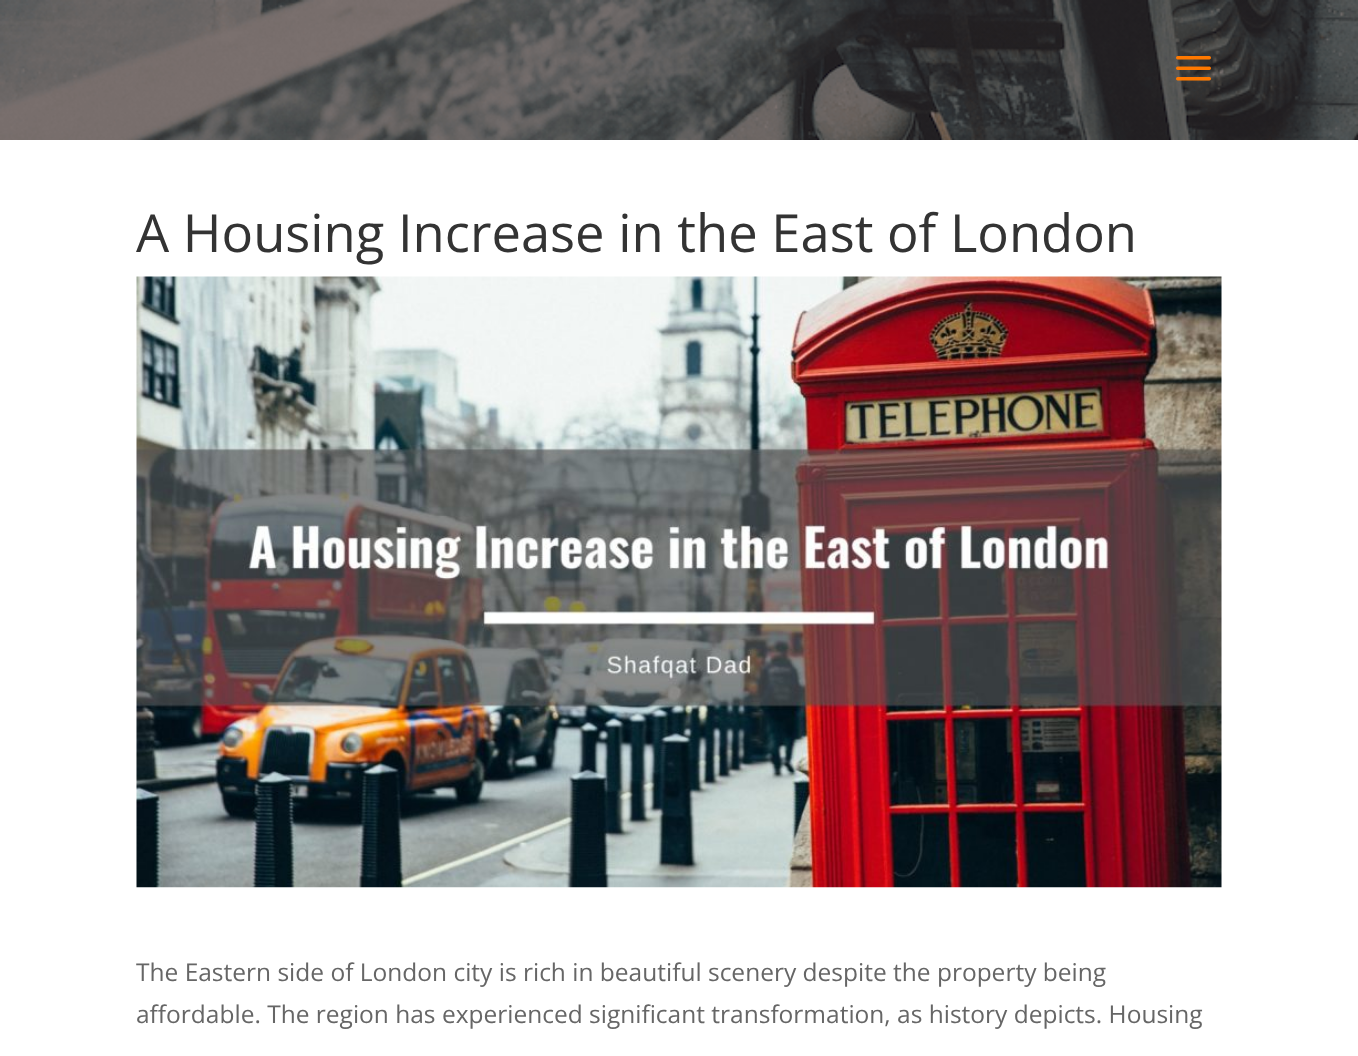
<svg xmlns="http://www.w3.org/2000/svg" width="1358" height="1056">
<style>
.a{font:52.5px Open Sans;fill:#333}
.b{font:24.5px Open Sans;fill:#666}
</style>
<rect width="100%" height="100%" fill="#fff"/>
<image href="1.png" x="0" y="0" width="1358" height="140"/>
<image href="2.png" x="1176" y="56" width="35" height="25"/>
<image href="3.png" x="136" y="276" width="1086" height="612"/>
<text class="a" x="136" y="252">A Housing Increase in the East of London</text>
<text class="b" x="136" y="981">The Eastern side of London city is rich in beautiful scenery despite the property being</text>
<text class="b" x="136" y="1023">affordable. The region has experienced significant transformation, as history depicts. Housing</text>
</svg>
